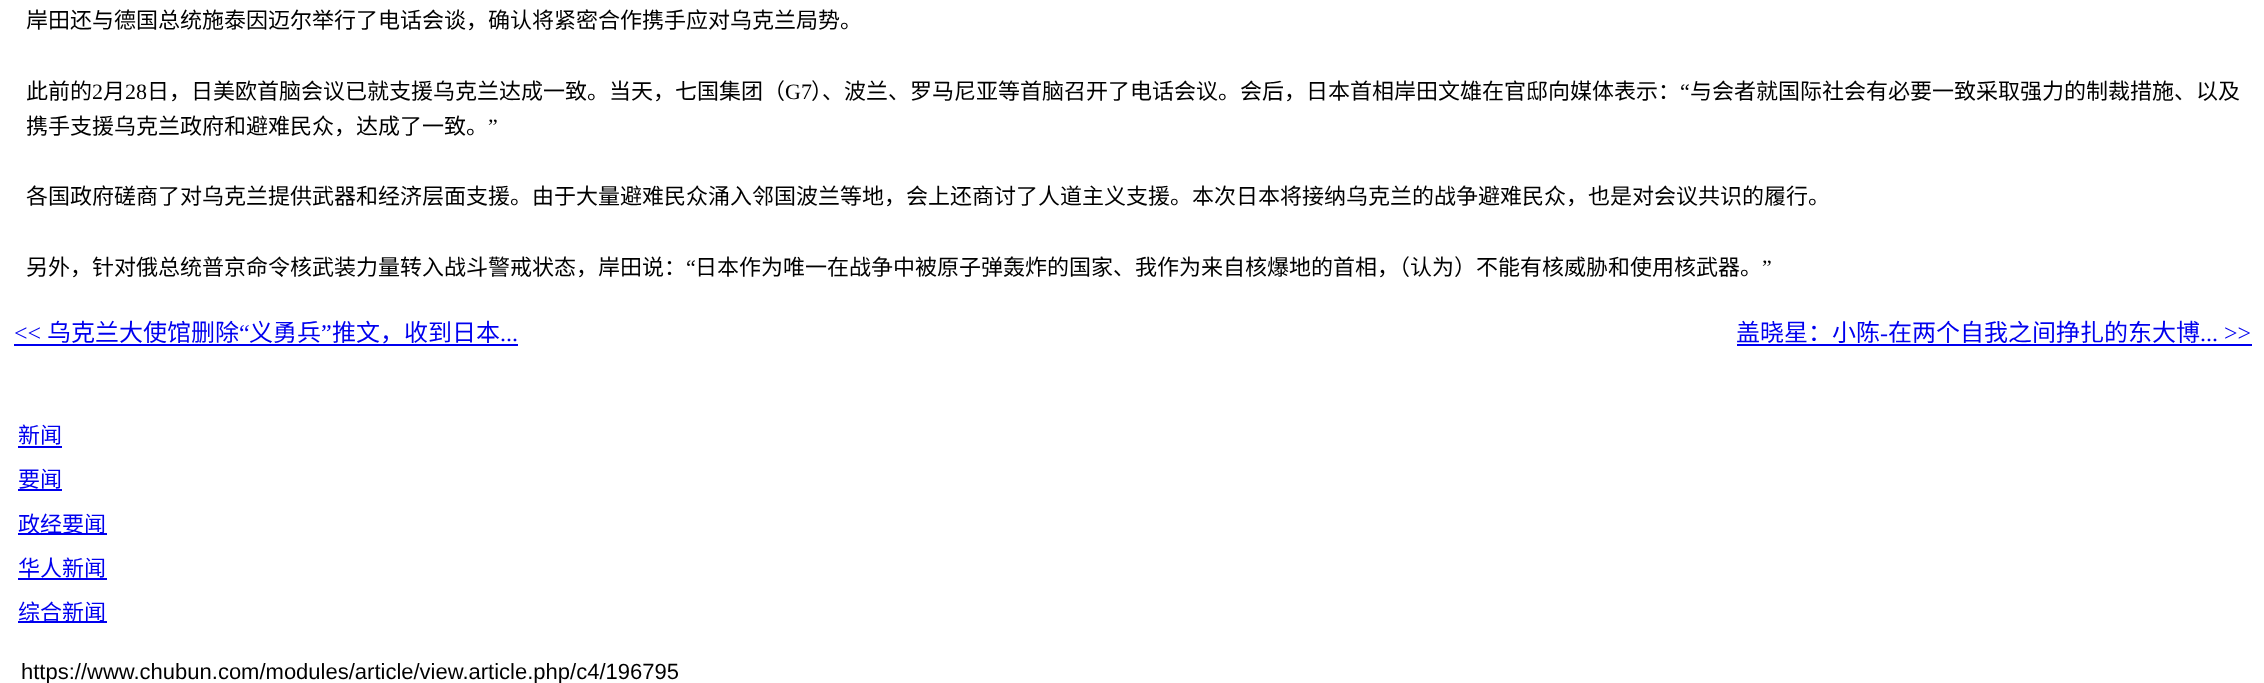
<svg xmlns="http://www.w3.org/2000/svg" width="2264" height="683">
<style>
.a{font:22px Noto Sans CJK SC;fill:#000}
.b{font:22px Liberation Serif;fill:#000}
.c{font:24px Liberation Serif;fill:#00e}
.d{font:24px Noto Sans CJK SC;fill:#00e}
.e{font:22px Noto Sans CJK SC;fill:#00e}
.f{font:22px Liberation Sans;fill:#000}
</style>
<rect width="100%" height="100%" fill="#fff"/>
<path fill="#00e" d="M14 344h504v2H14z"/>
<path fill="#00e" d="M1737 344h515v2H1737z"/>
<path fill="#00e" d="M18 446h44v2H18z"/>
<path fill="#00e" d="M18 489h44v2H18z"/>
<path fill="#00e" d="M18 533h89v2H18z"/>
<path fill="#00e" d="M18 578h89v2H18z"/>
<path fill="#00e" d="M18 621h89v2H18z"/>
<text class="a" x="26" y="28">岸田还与德国总统施泰因迈尔举行了电话会谈，确认将紧密合作携手应对乌克兰局势。</text>
<text class="a" x="26" y="99">此前的</text>
<text class="b" x="92" y="99">2</text>
<text class="a" x="103" y="99">月</text>
<text class="b" x="125" y="99">28</text>
<text class="a" x="147" y="99">日，日美欧首脑会议已就支援乌克兰达成一致。当天，七国集团（</text>
<text class="b" x="785" y="99">G7</text>
<text class="a" x="811" y="99">）、波兰、罗马尼亚等首脑召开了电话会议。会后，日本首相岸田文雄在官邸向媒体表示：</text>
<text class="b" x="1680" y="99">“</text>
<text class="a" x="1690" y="99">与会者就国际社会有必要一致采取强力的制裁措施、以及</text>
<text class="a" x="26" y="134">携手支援乌克兰政府和避难民众，达成了一致。</text>
<text class="b" x="488" y="134">”</text>
<text class="a" x="26" y="204">各国政府磋商了对乌克兰提供武器和经济层面支援。由于大量避难民众涌入邻国波兰等地，会上还商讨了人道主义支援。本次日本将接纳乌克兰的战争避难民众，也是对会议共识的履行。</text>
<text class="a" x="26" y="275">另外，针对俄总统普京命令核武装力量转入战斗警戒状态，岸田说：</text>
<text class="b" x="686" y="275">“</text>
<text class="a" x="695" y="275">日本作为唯一在战争中被原子弹轰炸的国家、我作为来自核爆地的首相，（认为）不能有核威胁和使用核武器。</text>
<text class="b" x="1762" y="275">”</text>
<text class="c" x="14" y="341">&lt;&lt;</text>
<text class="d" x="47" y="341">乌克兰大使馆删除</text>
<text class="c" x="239" y="341">“</text>
<text class="d" x="249" y="341">义勇兵</text>
<text class="c" x="321" y="341">”</text>
<text class="d" x="332" y="341">推文，收到日本</text>
<text class="c" x="500" y="341">...</text>
<text class="d" x="1736" y="341">盖晓星：小陈</text>
<text class="c" x="1880" y="341">-</text>
<text class="d" x="1888" y="341">在两个自我之间挣扎的东大博</text>
<text class="c" x="2200" y="341">... &gt;&gt;</text>
<text class="e" x="18" y="443">新闻</text>
<text class="e" x="18" y="487">要闻</text>
<text class="e" x="18" y="532">政经要闻</text>
<text class="e" x="18" y="576">华人新闻</text>
<text class="e" x="18" y="620">综合新闻</text>
<text class="f" x="21" y="679">https://www.chubun.com/modules/article/view.article.php/c4/196795</text>
</svg>
